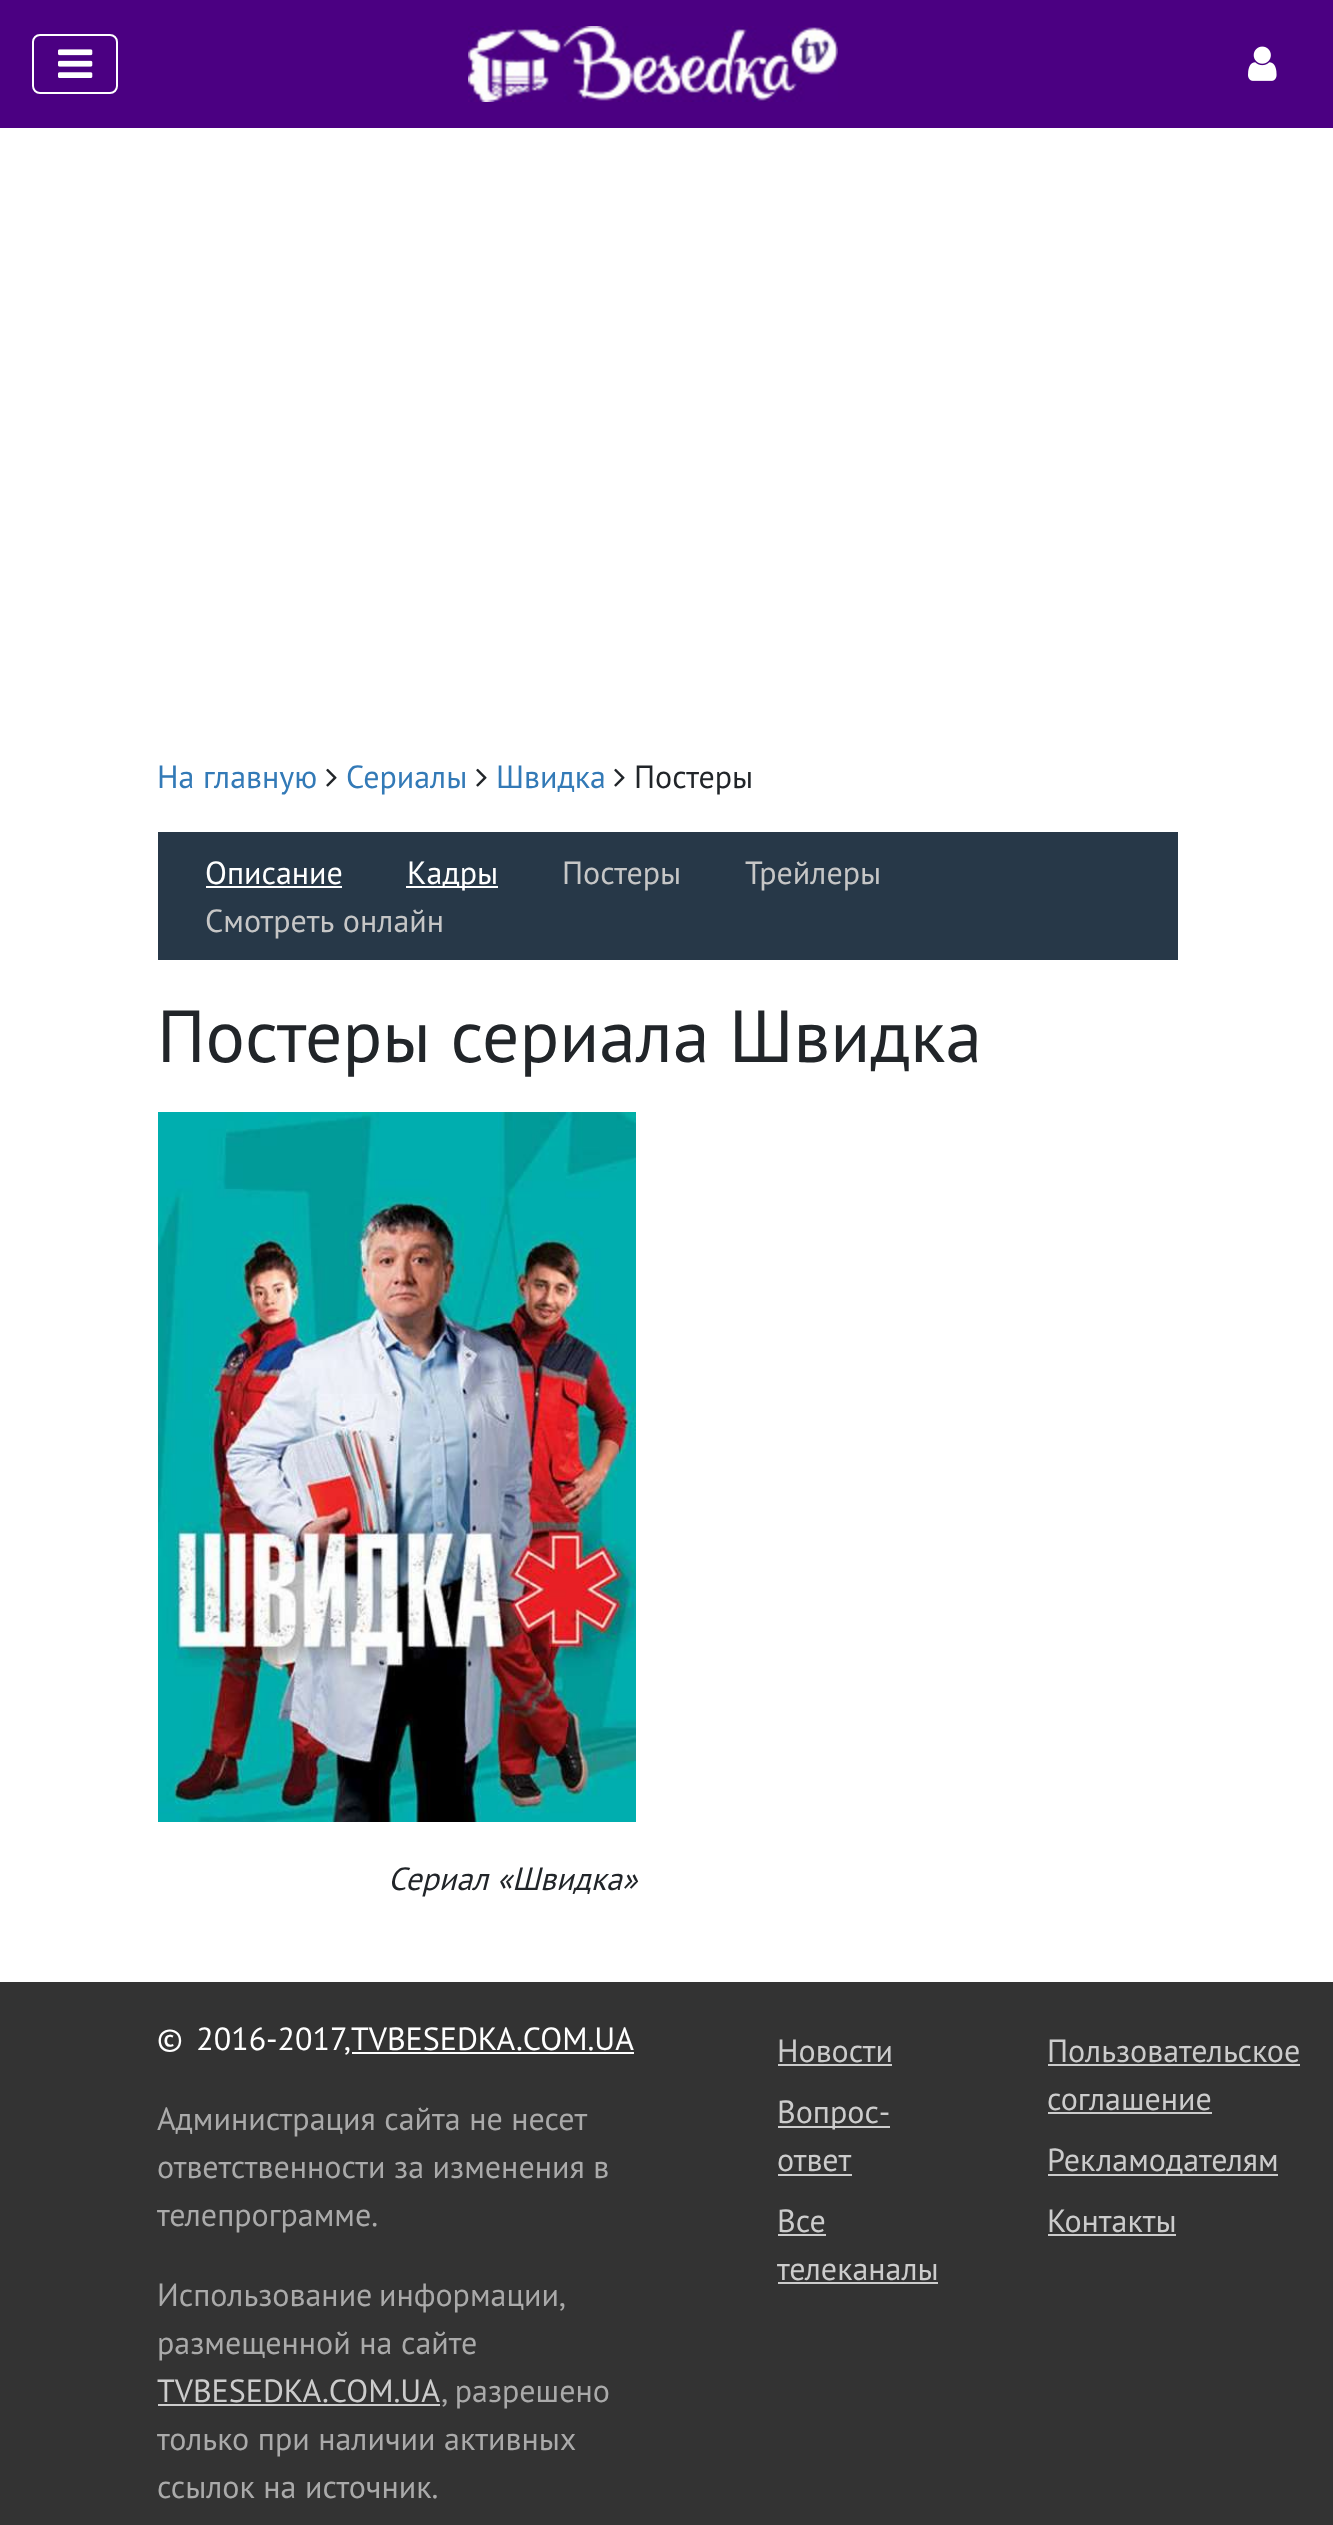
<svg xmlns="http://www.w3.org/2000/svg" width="1333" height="2525">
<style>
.a{font:32px PT Sans;fill:#337ab7}
.b{font:32px PT Sans;fill:#212529}
.c{font:32px PT Sans;fill:#fff}
.d{font:32px PT Sans;fill:#c6c6c6}
.e{font:73.6px PT Sans;fill:#212529}
.f{font:italic 32px PT Sans;fill:#212529}
.g{font:32px PT Sans;fill:#aaa}
.h{font:32px PT Sans;fill:#ccc}
</style>
<rect width="100%" height="100%" fill="#fff"/>
<path fill="#4b0082" d="M0 0h1333v128H0z"/>
<rect fill="none" stroke="#fff" stroke-width="2" x="33" y="35" width="84" height="58" rx="7"/>
<image href="1.png" x="58" y="49" width="35" height="29"/>
<image href="2.png" x="468" y="26" width="370" height="76"/>
<image href="3.png" x="1248" y="46" width="29" height="35"/>
<image href="4.png" x="326" y="768" width="11" height="19"/>
<image href="4.png" x="476" y="768" width="11" height="19"/>
<image href="4.png" x="614" y="768" width="11" height="19"/>
<path fill="#273848" d="M158 832h1020v128H158z"/>
<path fill="#fff" d="M206 886h136v2H206z"/>
<path fill="#fff" d="M406 886h92v2H406z"/>
<image href="5.png" x="158" y="1112" width="478" height="710"/>
<path fill="#333" d="M0 1982h1333v543H0z"/>
<path fill="#fff" d="M352 2052h282v2H352z"/>
<path fill="#ccc" d="M158 2404h282v2H158z"/>
<path fill="#ccc" d="M778 2064h114v2H778z"/>
<path fill="#ccc" d="M778 2126h112v2H778z"/>
<path fill="#ccc" d="M778 2174h74v2H778z"/>
<path fill="#ccc" d="M778 2234h48v2H778z"/>
<path fill="#ccc" d="M778 2282h160v2H778z"/>
<path fill="#ccc" d="M1048 2064h252v2H1048z"/>
<path fill="#ccc" d="M1048 2112h164v2H1048z"/>
<path fill="#ccc" d="M1048 2174h230v2H1048z"/>
<path fill="#ccc" d="M1048 2234h128v2H1048z"/>
<text class="a" x="157" y="788">На главную</text>
<text class="a" x="346" y="788">Сериалы</text>
<text class="a" x="496" y="788">Швидка</text>
<text class="b" x="634" y="788">Постеры</text>
<text class="c" x="205" y="884">Описание</text>
<text class="c" x="407" y="884">Кадры</text>
<text class="d" x="562" y="884">Постеры</text>
<text class="d" x="745" y="884">Трейлеры</text>
<text class="d" x="205" y="932" word-spacing="1">Смотреть онлайн</text>
<text class="e" x="157" y="1062">Постеры сериала Швидка</text>
<text class="f" x="388" y="1890">Сериал «Швидка»</text>
<text class="c" x="157" y="2050" word-spacing="5">© 2016-2017,</text>
<text class="c" x="351" y="2050">TVBESEDKA.COM.UA</text>
<text class="g" x="157" y="2130">Администрация сайта не несет</text>
<text class="g" x="157" y="2178">ответственности за изменения в</text>
<text class="g" x="157" y="2226">телепрограмме.</text>
<text class="g" x="157" y="2306" word-spacing="-2">Использование информации,</text>
<text class="g" x="157" y="2354">размещенной на сайте</text>
<text class="h" x="157" y="2402">TVBESEDKA.COM.UA</text>
<text class="g" x="441" y="2402" word-spacing="-2">, разрешено</text>
<text class="g" x="157" y="2450">только при наличии активных</text>
<text class="g" x="157" y="2498">ссылок на источник.</text>
<text class="h" x="777" y="2062">Новости</text>
<text class="h" x="777" y="2123">Вопрос-</text>
<text class="h" x="777" y="2171">ответ</text>
<text class="h" x="777" y="2232">Все</text>
<text class="h" x="777" y="2280">телеканалы</text>
<text class="h" x="1047" y="2062">Пользовательское</text>
<text class="h" x="1047" y="2110">соглашение</text>
<text class="h" x="1047" y="2171">Рекламодателям</text>
<text class="h" x="1047" y="2232">Контакты</text>
</svg>
